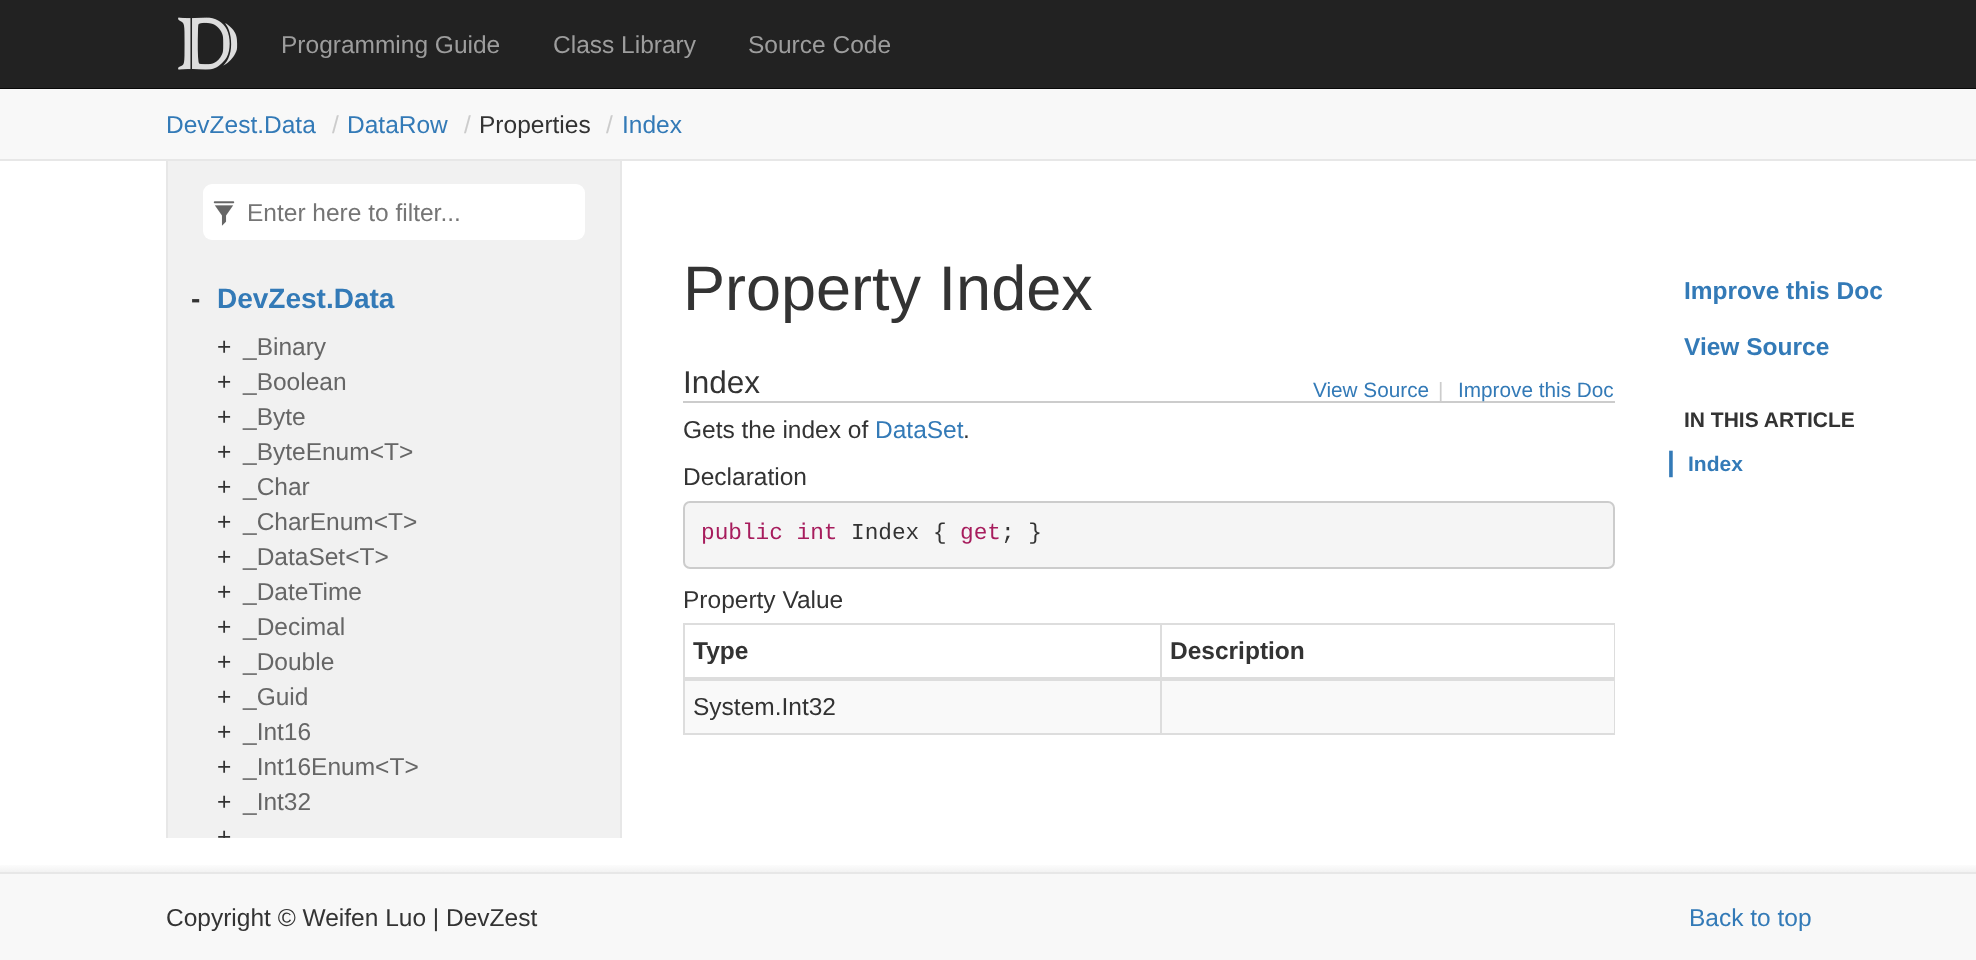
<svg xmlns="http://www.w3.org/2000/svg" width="1976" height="960">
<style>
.a{font:24.5px Liberation Sans;fill:#9d9d9d}
.b{font:24.5px Liberation Sans;fill:#337ab7}
.c{font:24.5px Liberation Sans;fill:#ccc}
.d{font:24.5px Liberation Sans;fill:#333}
.e{font:24.5px Liberation Sans;fill:#757575}
.f{font:bold 28px Liberation Sans;fill:#333}
.g{font:bold 28px Liberation Sans;fill:#337ab7}
.h{font:24.5px Liberation Sans;fill:#666}
.i{font:63px Liberation Sans;fill:#333}
.j{font:31.5px Liberation Sans;fill:#333}
.k{font:20.75px Liberation Sans;fill:#337ab7}
.l{font:20.75px Liberation Sans;fill:#ccc}
.m{font:22.75px Liberation Mono;fill:#a71d5d}
.n{font:22.75px Liberation Mono;fill:#333}
.o{font:bold 24.5px Liberation Sans;fill:#333}
.p{font:bold 24.5px Liberation Sans;fill:#337ab7}
.q{font:bold 21px Liberation Sans;fill:#333}
.r{font:bold 21px Liberation Sans;fill:#337ab7}
</style>
<defs>
<linearGradient id="g1" gradientUnits="userSpaceOnUse" x1="989" y1="863" x2="989" y2="872"><stop offset="0" stop-color="#fff"/><stop offset="1" stop-color="#f2f2f2"/></linearGradient>
<clipPath id="clip1"><path d="M186 263h434v575H186z"/></clipPath>
</defs>
<rect width="100%" height="100%" fill="#fff"/>
<path fill="#222" d="M0 0h1976v88H0z"/>
<path fill="#080808" d="M0 88h1976v1H0z"/>
<image href="1.png" x="178" y="17" width="60" height="53"/>
<path fill="#e7e7e7" d="M620 158h2v680H620z"/>
<path fill="#e7e7e7" d="M166 158h2v680H166z"/>
<path fill="#f8f8f8" d="M0 89h1976v70H0z"/>
<path fill="#e7e7e7" d="M0 159h1976v2H0z"/>
<path fill="#f1f1f1" d="M168 161h452v677H168z"/>
<rect fill="#fff" x="203" y="184" width="382" height="56" rx="9"/>
<image href="2.png" x="213" y="201" width="22" height="25"/>
<path fill="#ccc" d="M683 401h932v2H683z"/>
<rect fill="#f5f5f5" stroke="#ccc" stroke-width="2" x="684" y="502" width="930" height="66" rx="6"/>
<path fill="#ddd" d="M683 623h932v2H683z"/>
<path fill="#ddd" d="M1614 623h1v112H1614z"/>
<path fill="#ddd" d="M683 733h932v2H683z"/>
<path fill="#ddd" d="M683 623h2v112H683z"/>
<path fill="#f9f9f9" d="M685 681h929v52H685z"/>
<path fill="#ddd" d="M1160 623h2v112H1160z"/>
<path fill="#ddd" d="M683 677h932v4H683z"/>
<path fill="url(#g1)" d="M0 865h1976v7H0z"/>
<path fill="#f8f8f8" d="M0 874h1976v86H0z"/>
<path fill="#e7e7e7" d="M0 872h1976v2H0z"/>
<text class="a" x="281" y="53">Programming Guide</text>
<text class="a" x="553" y="53">Class Library</text>
<text class="a" x="748" y="53">Source Code</text>
<text class="b" x="166" y="133">DevZest.Data</text>
<text class="c" x="332" y="133">/</text>
<text class="b" x="347" y="133">DataRow</text>
<text class="c" x="464" y="133">/</text>
<text class="d" x="479" y="133">Properties</text>
<text class="c" x="606" y="133">/</text>
<text class="b" x="622" y="133">Index</text>
<text class="e" x="247" y="221">Enter here to filter...</text>
<text class="f" x="191" y="308">-</text>
<text class="g" x="217" y="308">DevZest.Data</text>
<text class="d" x="217" y="355">+</text>
<text class="h" x="243" y="355">_Binary</text>
<text class="d" x="217" y="390">+</text>
<text class="h" x="243" y="390">_Boolean</text>
<text class="d" x="217" y="425">+</text>
<text class="h" x="243" y="425">_Byte</text>
<text class="d" x="217" y="460">+</text>
<text class="h" x="243" y="460">_ByteEnum&lt;T&gt;</text>
<text class="d" x="217" y="495">+</text>
<text class="h" x="243" y="495">_Char</text>
<text class="d" x="217" y="530">+</text>
<text class="h" x="243" y="530">_CharEnum&lt;T&gt;</text>
<text class="d" x="217" y="565">+</text>
<text class="h" x="243" y="565">_DataSet&lt;T&gt;</text>
<text class="d" x="217" y="600">+</text>
<text class="h" x="243" y="600">_DateTime</text>
<text class="d" x="217" y="635">+</text>
<text class="h" x="243" y="635">_Decimal</text>
<text class="d" x="217" y="670">+</text>
<text class="h" x="243" y="670">_Double</text>
<text class="d" x="217" y="705">+</text>
<text class="h" x="243" y="705">_Guid</text>
<text class="d" x="217" y="740">+</text>
<text class="h" x="243" y="740">_Int16</text>
<text class="d" x="217" y="775">+</text>
<text class="h" x="243" y="775">_Int16Enum&lt;T&gt;</text>
<text class="d" x="217" y="810">+</text>
<text class="h" x="243" y="810">_Int32</text>
<g clip-path="url(#clip1)">
<text class="d" x="217" y="845">+</text>
</g>
<text class="i" x="683" y="310">Property Index</text>
<text class="j" x="683" y="393">Index</text>
<text class="k" x="1313" y="397">View Source</text>
<text class="l" x="1438" y="397">|</text>
<text class="k" x="1458" y="397">Improve this Doc</text>
<text class="d" x="683" y="438">Gets the index of</text>
<text class="b" x="875" y="438">DataSet</text>
<text class="d" x="963" y="438">.</text>
<text class="d" x="683" y="485">Declaration</text>
<text class="m" x="701" y="539">public int</text>
<text class="n" x="851" y="539">Index {</text>
<text class="m" x="960" y="539">get</text>
<text class="n" x="1001" y="539">; }</text>
<text class="d" x="683" y="608">Property Value</text>
<text class="o" x="693" y="659">Type</text>
<text class="o" x="1170" y="659">Description</text>
<text class="d" x="693" y="715">System.Int32</text>
<text class="p" x="1684" y="299">Improve this Doc</text>
<text class="p" x="1684" y="355">View Source</text>
<text class="q" x="1684" y="427">IN THIS ARTICLE</text>
<text class="g" x="1667" y="471">|</text>
<text class="r" x="1688" y="471">Index</text>
<text class="d" x="166" y="926">Copyright © Weifen Luo | DevZest</text>
<text class="b" x="1689" y="926">Back to top</text>
</svg>
